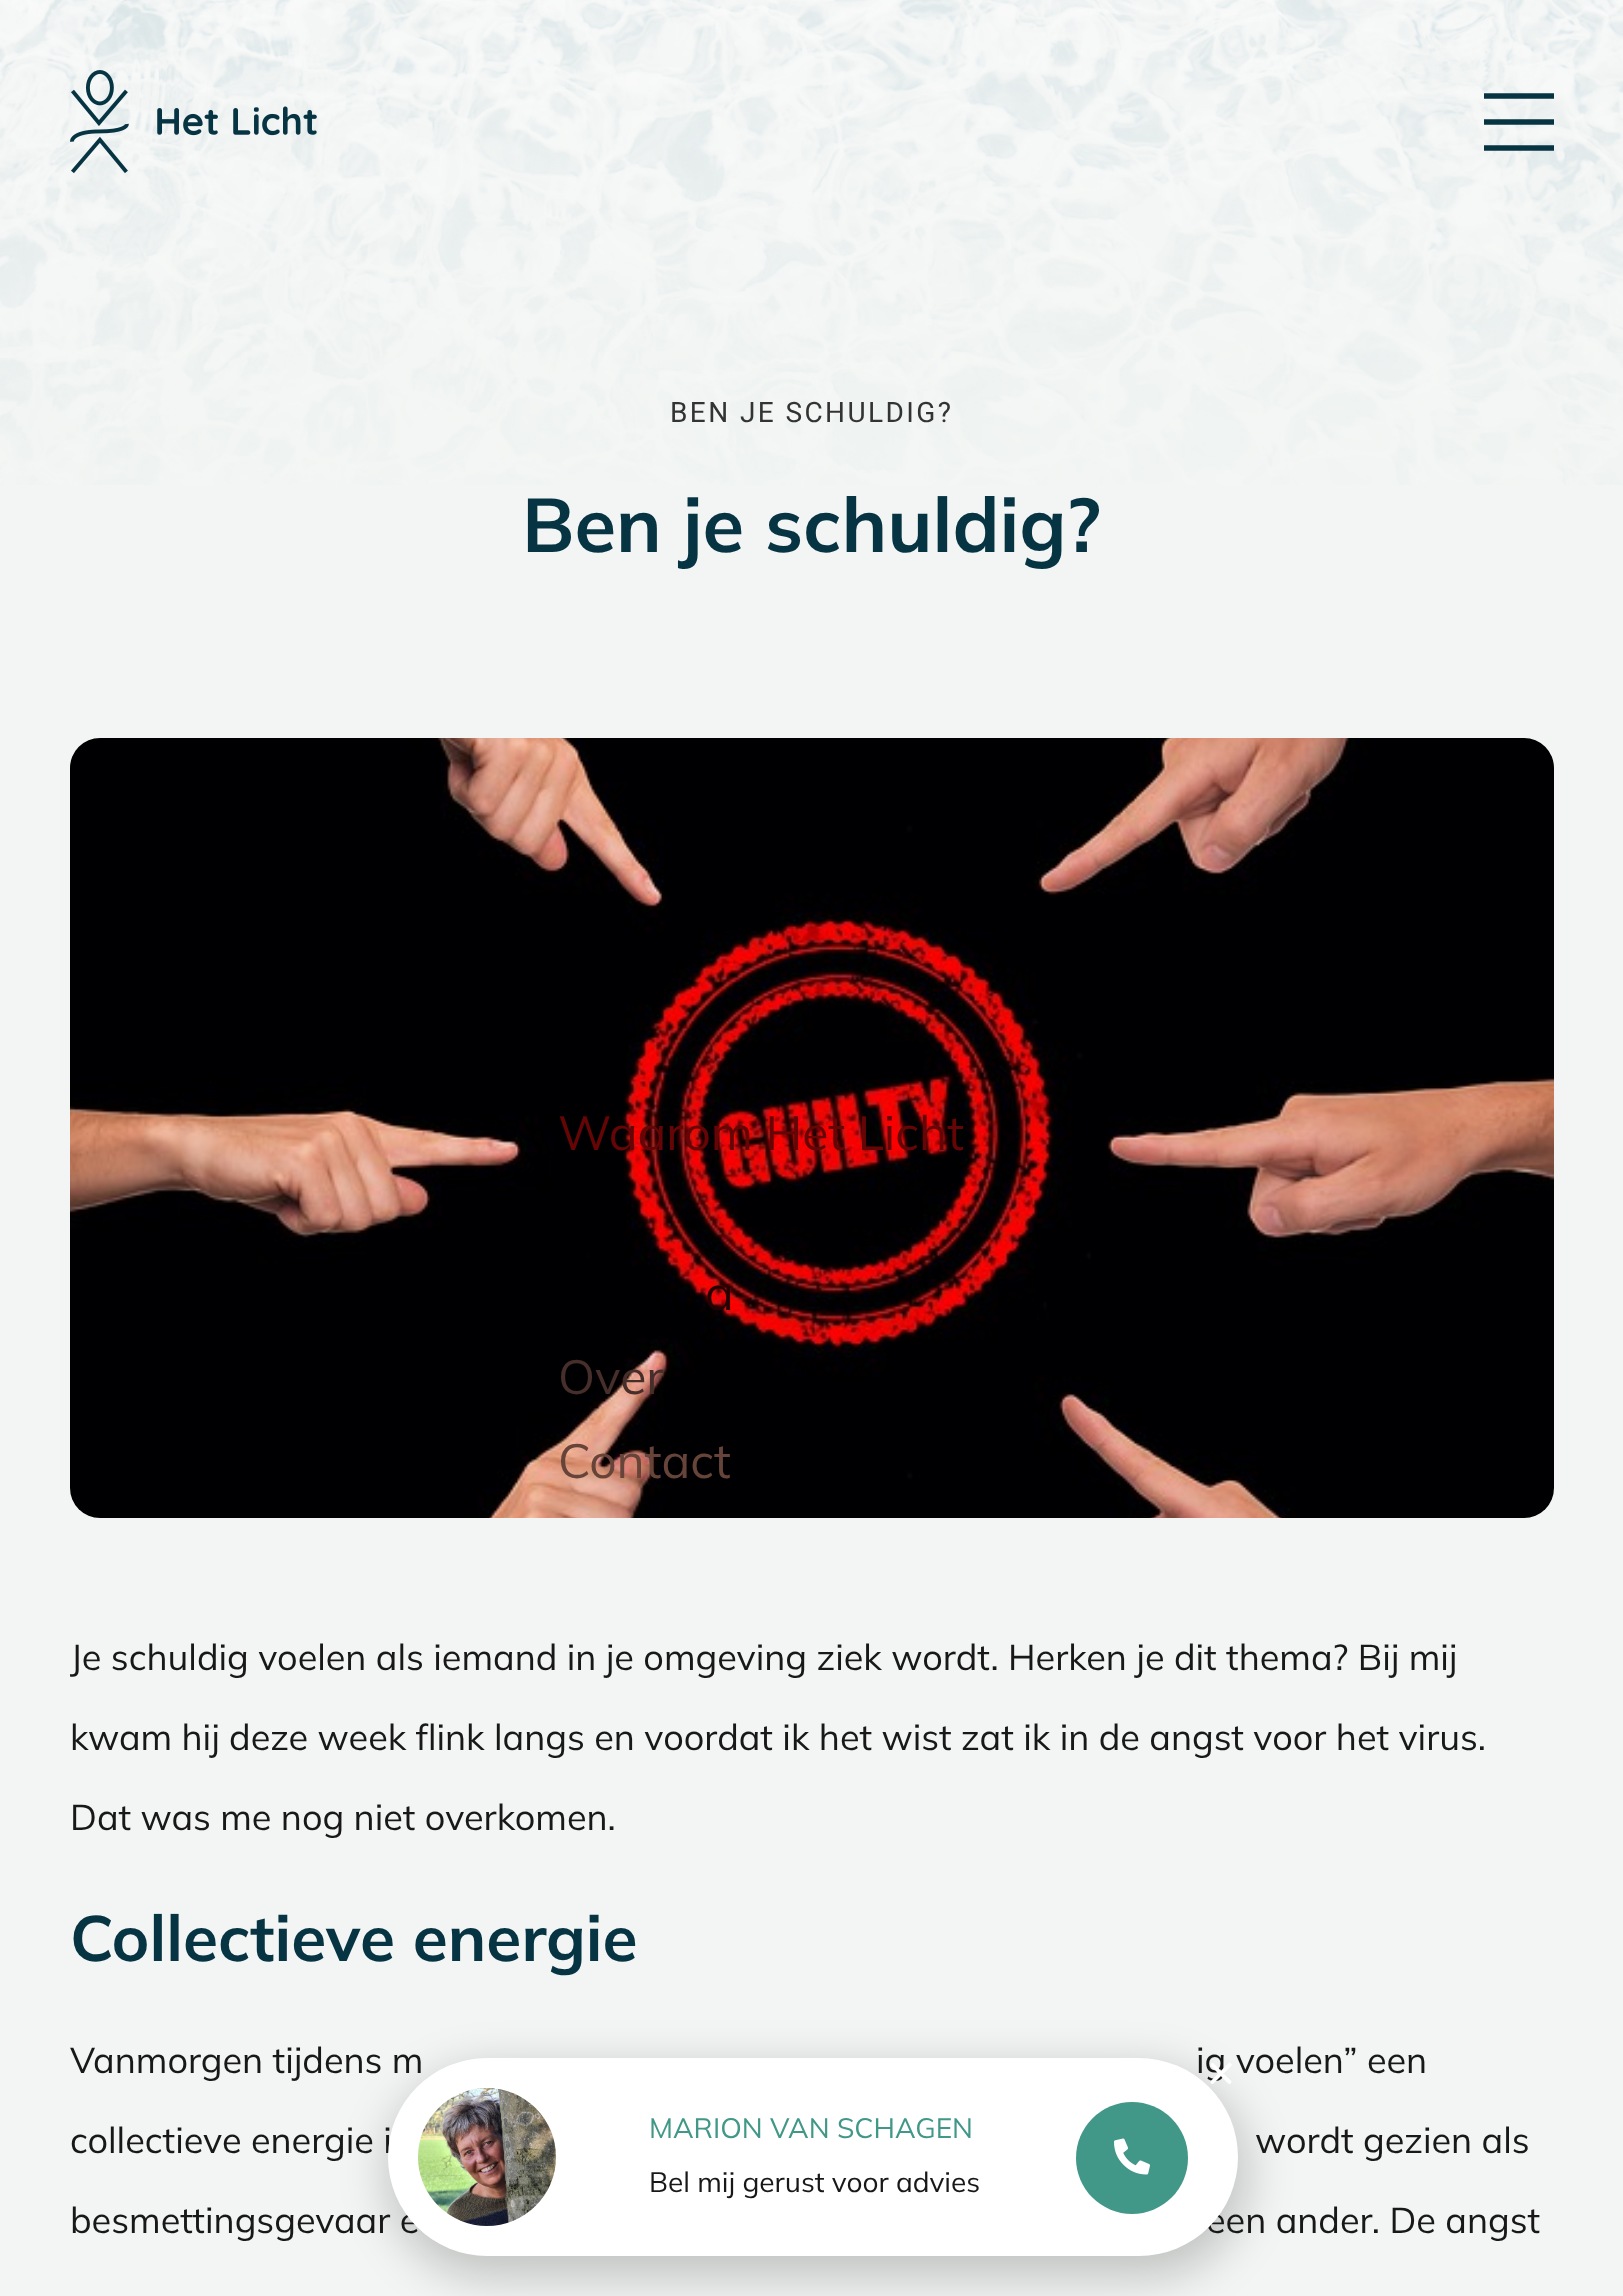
<svg xmlns="http://www.w3.org/2000/svg" width="1623" height="2296">
<style>
.a{font:28px Roboto;letter-spacing:2.4px;fill:#333}
.b{font:bold 76px Mulish;fill:#073443}
.c{font:48px Mulish;fill:#660505}
.d{font:48px Mulish;fill:#240203}
.e{font:48px Mulish;fill:#462e2a}
.f{font:48px Mulish;fill:#66443a}
.g{font:36px Mulish;fill:#181818}
.h{font:bold 64px Mulish;fill:#073443}
.i{font:28px Mulish;fill:#419888}
.j{font:28px Mulish;fill:#181818}
</style>
<defs>
<clipPath id="clip1"><path d="M1484 92h70v60H1484z"/></clipPath>
</defs>
<rect width="100%" height="100%" fill="#f2f5f3"/>
<image href="1.png" x="0" y="0" width="1623" height="485"/>
<image href="2.png" x="70" y="70" width="247" height="104"/>
<g clip-path="url(#clip1)">
<path fill="none" stroke="#073443" stroke-width="5.3" d="M1484 96h70.5"/>
<path fill="none" stroke="#073443" stroke-width="5.3" d="M1484 122h70.5"/>
<path fill="none" stroke="#073443" stroke-width="5.3" d="M1484 148h70.5"/>
</g>
<image href="3.png" x="70" y="738" width="1484" height="780"/>
<rect fill="#00000033" filter="blur(23px)" x="386" y="2068" width="862" height="210" rx="105"/>
<text class="a" x="670" y="422">BEN JE SCHULDIG?</text>
<text class="b" x="522" y="552">Ben je schuldig?</text>
<text class="c" x="558" y="1150">Waarom Het Licht</text>
<text class="d" x="705" y="1310">a</text>
<text class="e" x="558" y="1394">Over</text>
<text class="f" x="558" y="1478">Contact</text>
<text class="g" x="70" y="1670">Je schuldig voelen als iemand in je omgeving ziek wordt. Herken je dit thema? Bij mij</text>
<text class="g" x="70" y="1750">kwam hij deze week flink langs en voordat ik het wist zat ik in de angst voor het virus.</text>
<text class="g" x="70" y="1830">Dat was me nog niet overkomen.</text>
<text class="h" x="70" y="1961">Collectieve energie</text>
<text class="g" x="70" y="2073">Vanmorgen tijdens m</text>
<text class="g" x="1196" y="2073">ig voelen” een</text>
<text class="g" x="70" y="2153">collectieve energie i</text>
<text class="g" x="1255" y="2153">wordt gezien als</text>
<text class="g" x="70" y="2233">besmettingsgevaar e</text>
<text class="g" x="1206" y="2233">een ander. De angst</text>
<rect fill="#fff" x="388" y="2058" width="850" height="198" rx="99"/>
<image href="4.png" x="1210" y="2063" width="22" height="21"/>
<image href="5.png" x="418" y="2088" width="138" height="138"/>
<text class="i" x="649" y="2138">MARION VAN SCHAGEN</text>
<text class="j" x="649" y="2192">Bel mij gerust voor advies</text>
<circle fill="#419888" cx="1132" cy="2158" r="56"/>
<image href="6.png" x="1114" y="2138" width="36" height="37"/>
</svg>
